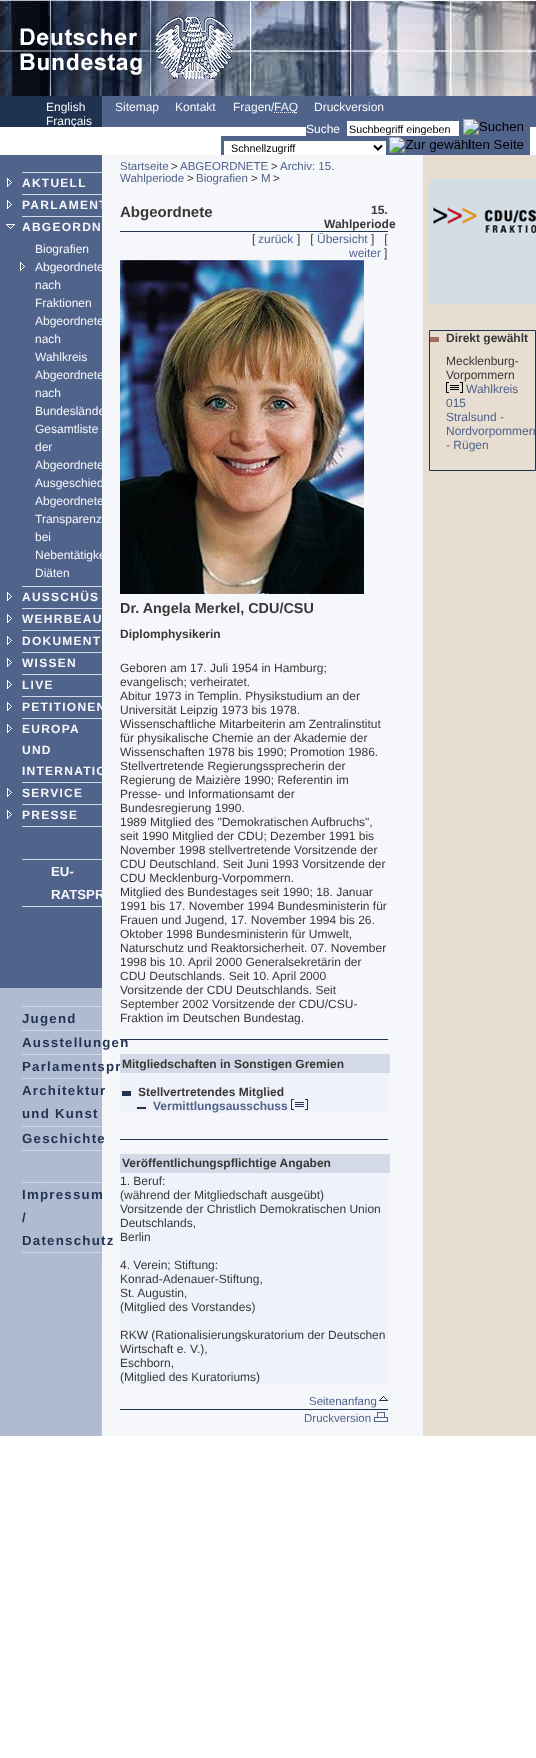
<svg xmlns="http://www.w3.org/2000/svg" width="536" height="1758">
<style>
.a{font:12px Liberation Sans;fill:#f6f7fb}
.b{font:12px Liberation Sans;fill:#fff}
.c{font:10.75px Liberation Sans;fill:#000}
.d{font:13px Liberation Sans;fill:#000}
.e{font:bold 12px Liberation Sans;letter-spacing:1.25px;fill:#f6f7fb}
.f{font:bold 13.25px Liberation Sans;fill:#f6f7fb}
.g{font:bold 13.25px Liberation Sans;letter-spacing:1.25px;fill:#1f3250}
.h{font:11.5px Liberation Sans;fill:#50638b}
.i{font:11.5px Liberation Sans;fill:#383838}
.j{font:bold 15px Liberation Sans;fill:#383838}
.k{font:bold 12px Liberation Sans;fill:#383838}
.l{font:12px Liberation Sans;fill:#383838}
.m{font:12px Liberation Sans;fill:#50638b}
.n{font:bold 14.4px Liberation Sans;fill:#383838}
.o{font:bold 12px Liberation Sans;fill:#50638b}
</style>
<defs>
<clipPath id="clip1"><path d="M349 123h108v12H349z"/></clipPath>
</defs>
<rect width="100%" height="100%" fill="#fff"/>
<image href="1.png" x="0" y="0" width="536" height="96"/>
<image href="2.png" x="20" y="17" width="213" height="62"/>
<path fill="#50638b" d="M102 96h434v31H102z"/>
<path fill="#1f3250" d="M0 96h102v31H0z"/>
<path fill="none" stroke="#f6f7fb" stroke-dasharray="1 1" d="M274 112.5h24"/>
<path fill="#50638b" d="M306 127h224v9H306z"/>
<path fill="#fff" d="M347 121h112v15H347z"/>
<image href="3.png" x="463" y="119" width="61" height="16"/>
<path fill="#50638b" d="M221 136h309v19H221z"/>
<path fill="#fff" d="M224 141h162v14H224z"/>
<path fill="none" stroke="#000" stroke-width="2" d="M374 145.5l4 4l4-4"/>
<image href="4.png" x="389" y="137" width="135" height="16"/>
<image href="5.png" x="0" y="155" width="423" height="1281"/>
<path fill="#e7ddd1" d="M423 155h113v1281H423z"/>
<path fill="#b0bbd1" d="M101 988h1v273H101z"/>
<path fill="#50638b" d="M0 155h102v833H0z"/>
<path fill="#d3d9e7" d="M22 172h80v1H22z"/>
<path fill="#d3d9e7" d="M22 194h80v1H22z"/>
<image href="6.png" x="7" y="178" width="5" height="9"/>
<path fill="#d3d9e7" d="M22 216h80v1H22z"/>
<image href="6.png" x="7" y="200" width="5" height="9"/>
<path fill="#d3d9e7" d="M22 586h80v1H22z"/>
<image href="7.png" x="6" y="224" width="9" height="5"/>
<image href="6.png" x="20" y="262" width="5" height="9"/>
<path fill="#d3d9e7" d="M22 608h80v1H22z"/>
<image href="6.png" x="7" y="592" width="5" height="9"/>
<path fill="#d3d9e7" d="M22 630h80v1H22z"/>
<image href="6.png" x="7" y="614" width="5" height="9"/>
<path fill="#d3d9e7" d="M22 652h80v1H22z"/>
<image href="6.png" x="7" y="636" width="5" height="9"/>
<path fill="#d3d9e7" d="M22 674h80v1H22z"/>
<image href="6.png" x="7" y="658" width="5" height="9"/>
<path fill="#d3d9e7" d="M22 696h80v1H22z"/>
<image href="6.png" x="7" y="680" width="5" height="9"/>
<path fill="#d3d9e7" d="M22 718h80v1H22z"/>
<image href="6.png" x="7" y="702" width="5" height="9"/>
<path fill="#d3d9e7" d="M22 782h80v1H22z"/>
<image href="6.png" x="7" y="724" width="5" height="9"/>
<path fill="#d3d9e7" d="M22 804h80v1H22z"/>
<image href="6.png" x="7" y="788" width="5" height="9"/>
<path fill="#d3d9e7" d="M22 826h80v1H22z"/>
<image href="6.png" x="7" y="810" width="5" height="9"/>
<path fill="#d3d9e7" d="M22 859h80v1H22z"/>
<path fill="#d3d9e7" d="M22 906h80v1H22z"/>
<path fill="#d3d9e7" d="M22 1006h80v1H22z"/>
<path fill="#d3d9e7" d="M22 1030h80v1H22z"/>
<path fill="#d3d9e7" d="M22 1054h80v1H22z"/>
<path fill="#d3d9e7" d="M22 1078h80v1H22z"/>
<path fill="#d3d9e7" d="M22 1126h80v1H22z"/>
<path fill="#d3d9e7" d="M22 1150h80v1H22z"/>
<path fill="#d3d9e7" d="M22 1182h80v1H22z"/>
<path fill="#d3d9e7" d="M22 1252h80v1H22z"/>
<path fill="#1f3250" d="M120 231h268v1H120z"/>
<image href="8.png" x="120" y="260" width="244" height="334"/>
<path fill="#1f3250" d="M120 1039h268v1H120z"/>
<path fill="#1f3250" d="M120 1139h268v1H120z"/>
<path fill="#eff2fa" d="M120 1173h268v211H120z"/>
<path fill="#d3d9e7" d="M120 1154h270v19H120z"/>
<path fill="#1f3250" d="M120 1409h268v1H120z"/>
<image href="10.png" x="379" y="1396" width="9" height="5"/>
<image href="11.png" x="374" y="1412" width="14" height="10"/>
<image href="12.png" x="429" y="179" width="107" height="125"/>
<path fill="none" stroke="#1f3250" d="M429.5 330.5h106v140H429.5z"/>
<path fill="#a46f61" d="M430 337h9v5H430z"/>
<image href="13.png" x="446" y="382" width="17" height="11"/>
<text class="a" x="46" y="111">English</text>
<text class="a" x="46" y="125">Français</text>
<text class="a" x="115" y="111">Sitemap</text>
<text class="a" x="175" y="111">Kontakt</text>
<text class="a" x="233" y="111">Fragen/</text>
<text class="a" x="274" y="111">FAQ</text>
<text class="a" x="314" y="111">Druckversion</text>
<text class="b" x="306" y="133">Suche</text>
<g clip-path="url(#clip1)">
<text class="c" x="349" y="133">Suchbegriff eingeben</text>
</g>
<text class="c" x="231" y="152">Schnellzugriff</text>
<text class="d" x="468" y="149">l</text>
<text class="e" x="22" y="187">AKTUELL</text>
<text class="e" x="22" y="209">PARLAMENT</text>
<text class="e" x="22" y="231">ABGEORDN</text>
<text class="a" x="35" y="253">Biografien</text>
<text class="a" x="35" y="271">Abgeordnete</text>
<text class="a" x="35" y="289">nach</text>
<text class="a" x="35" y="307">Fraktionen</text>
<text class="a" x="35" y="325">Abgeordnete</text>
<text class="a" x="35" y="343">nach</text>
<text class="a" x="35" y="361">Wahlkreis</text>
<text class="a" x="35" y="379">Abgeordnete</text>
<text class="a" x="35" y="397">nach</text>
<text class="a" x="35" y="415">Bundeslände</text>
<text class="a" x="35" y="433">Gesamtliste</text>
<text class="a" x="35" y="451">der</text>
<text class="a" x="35" y="469">Abgeordnete</text>
<text class="a" x="35" y="487">Ausgeschied</text>
<text class="a" x="35" y="505">Abgeordnete</text>
<text class="a" x="35" y="523">Transparenz</text>
<text class="a" x="35" y="541">bei</text>
<text class="a" x="35" y="559">Nebentätigke</text>
<text class="a" x="35" y="577">Diäten</text>
<text class="e" x="22" y="601">AUSSCHÜS</text>
<text class="e" x="22" y="623">WEHRBEAU</text>
<text class="e" x="22" y="645">DOKUMENT</text>
<text class="e" x="22" y="667">WISSEN</text>
<text class="e" x="22" y="689">LIVE</text>
<text class="e" x="22" y="711">PETITIONEN</text>
<text class="e" x="22" y="733">EUROPA</text>
<text class="e" x="22" y="754">UND</text>
<text class="e" x="22" y="775">INTERNATIO</text>
<text class="e" x="22" y="797">SERVICE</text>
<text class="e" x="22" y="819">PRESSE</text>
<text class="f" x="51" y="876">EU-</text>
<text class="f" x="51" y="899">RATSPR</text>
<text class="g" x="22" y="1023">Jugend</text>
<text class="g" x="22" y="1047">Ausstellungen</text>
<text class="g" x="22" y="1071">Parlamentspr</text>
<text class="g" x="22" y="1095">Architektur</text>
<text class="g" x="22" y="1118">und Kunst</text>
<text class="g" x="22" y="1143">Geschichte</text>
<text class="g" x="22" y="1199">Impressum</text>
<text class="g" x="22" y="1222">/</text>
<text class="g" x="22" y="1245">Datenschutz</text>
<text class="h" x="120" y="170">Startseite</text>
<text class="i" x="171" y="170">&gt;</text>
<text class="h" x="180" y="170">ABGEORDNETE</text>
<text class="i" x="271" y="170">&gt;</text>
<text class="h" x="280" y="170">Archiv: 15.</text>
<text class="h" x="120" y="182">Wahlperiode</text>
<text class="i" x="187" y="182">&gt;</text>
<text class="h" x="196" y="182">Biografien</text>
<text class="i" x="251" y="182">&gt;</text>
<text class="h" x="261" y="182">M</text>
<text class="i" x="273" y="182">&gt;</text>
<text class="j" x="120" y="217">Abgeordnete</text>
<text class="k" x="371" y="214">15.</text>
<text class="k" x="324" y="228">Wahlperiode</text>
<text class="l" x="252" y="243">[</text>
<text class="m" x="258" y="243">zurück</text>
<text class="l" xml:space="preserve" x="297" y="243">]   [</text>
<text class="m" x="317" y="243">Übersicht</text>
<text class="l" xml:space="preserve" x="371" y="243">]   [</text>
<text class="m" x="349" y="257">weiter</text>
<text class="l" x="384" y="257">]</text>
<text class="n" x="120" y="613">Dr. Angela Merkel, CDU/CSU</text>
<text class="k" x="120" y="638">Diplomphysikerin</text>
<text class="l" x="120" y="672">Geboren am 17. Juli 1954 in Hamburg;</text>
<text class="l" x="120" y="686">evangelisch; verheiratet.</text>
<text class="l" x="120" y="700">Abitur 1973 in Templin. Physikstudium an der</text>
<text class="l" x="120" y="714">Universität Leipzig 1973 bis 1978.</text>
<text class="l" x="120" y="728">Wissenschaftliche Mitarbeiterin am Zentralinstitut</text>
<text class="l" x="120" y="742">für physikalische Chemie an der Akademie der</text>
<text class="l" x="120" y="756">Wissenschaften 1978 bis 1990; Promotion 1986.</text>
<text class="l" x="120" y="770">Stellvertretende Regierungssprecherin der</text>
<text class="l" x="120" y="784">Regierung de Maizière 1990; Referentin im</text>
<text class="l" x="120" y="798">Presse- und Informationsamt der</text>
<text class="l" x="120" y="812">Bundesregierung 1990.</text>
<text class="l" x="120" y="826">1989 Mitglied des "Demokratischen Aufbruchs",</text>
<text class="l" x="120" y="840">seit 1990 Mitglied der CDU; Dezember 1991 bis</text>
<text class="l" x="120" y="854">November 1998 stellvertretende Vorsitzende der</text>
<text class="l" x="120" y="868">CDU Deutschland. Seit Juni 1993 Vorsitzende der</text>
<text class="l" x="120" y="882">CDU Mecklenburg-Vorpommern.</text>
<text class="l" x="120" y="896">Mitglied des Bundestages seit 1990; 18. Januar</text>
<text class="l" x="120" y="910">1991 bis 17. November 1994 Bundesministerin für</text>
<text class="l" x="120" y="924">Frauen und Jugend, 17. November 1994 bis 26.</text>
<text class="l" x="120" y="938">Oktober 1998 Bundesministerin für Umwelt,</text>
<text class="l" x="120" y="952">Naturschutz und Reaktorsicherheit. 07. November</text>
<text class="l" x="120" y="966">1998 bis 10. April 2000 Generalsekretärin der</text>
<text class="l" x="120" y="980">CDU Deutschlands. Seit 10. April 2000</text>
<text class="l" x="120" y="994">Vorsitzende der CDU Deutschlands. Seit</text>
<text class="l" x="120" y="1008">September 2002 Vorsitzende der CDU/CSU-</text>
<text class="l" x="120" y="1022">Fraktion im Deutschen Bundestag.</text>
<path fill="#eff2fa" d="M120 1073h268v40H120z"/>
<path fill="#d3d9e7" d="M120 1054h270v19H120z"/>
<text class="k" x="122" y="1068">Mitgliedschaften in Sonstigen Gremien</text>
<path fill="#1f3250" d="M122 1091h9v5H122z"/>
<text class="k" x="138" y="1096">Stellvertretendes Mitglied</text>
<path fill="#1f3250" d="M137 1107h9v2H137z"/>
<text class="o" x="153" y="1110">Vermittlungsausschuss</text>
<image href="9.png" x="291" y="1099" width="17" height="11"/>
<text class="k" x="122" y="1167">Veröffentlichungspflichtige Angaben</text>
<text class="l" x="120" y="1185">1. Beruf:</text>
<text class="l" x="120" y="1199">(während der Mitgliedschaft ausgeübt)</text>
<text class="l" x="120" y="1213">Vorsitzende der Christlich Demokratischen Union</text>
<text class="l" x="120" y="1227">Deutschlands,</text>
<text class="l" x="120" y="1241">Berlin</text>
<text class="l" x="120" y="1269">4. Verein; Stiftung:</text>
<text class="l" x="120" y="1283">Konrad-Adenauer-Stiftung,</text>
<text class="l" x="120" y="1297">St. Augustin,</text>
<text class="l" x="120" y="1311">(Mitglied des Vorstandes)</text>
<text class="l" x="120" y="1339">RKW (Rationalisierungskuratorium der Deutschen</text>
<text class="l" x="120" y="1353">Wirtschaft e. V.),</text>
<text class="l" x="120" y="1367">Eschborn,</text>
<text class="l" x="120" y="1381">(Mitglied des Kuratoriums)</text>
<text class="h" x="309" y="1405">Seitenanfang</text>
<text class="h" x="304" y="1422">Druckversion</text>
<text class="k" x="446" y="342">Direkt gewählt</text>
<text class="l" x="446" y="365">Mecklenburg-</text>
<text class="l" x="446" y="379">Vorpommern</text>
<text class="m" x="466" y="393">Wahlkreis</text>
<text class="m" x="446" y="407">015</text>
<text class="m" x="446" y="421">Stralsund -</text>
<text class="m" x="446" y="435">Nordvorpommern</text>
<text class="m" x="446" y="449">- Rügen</text>
</svg>
